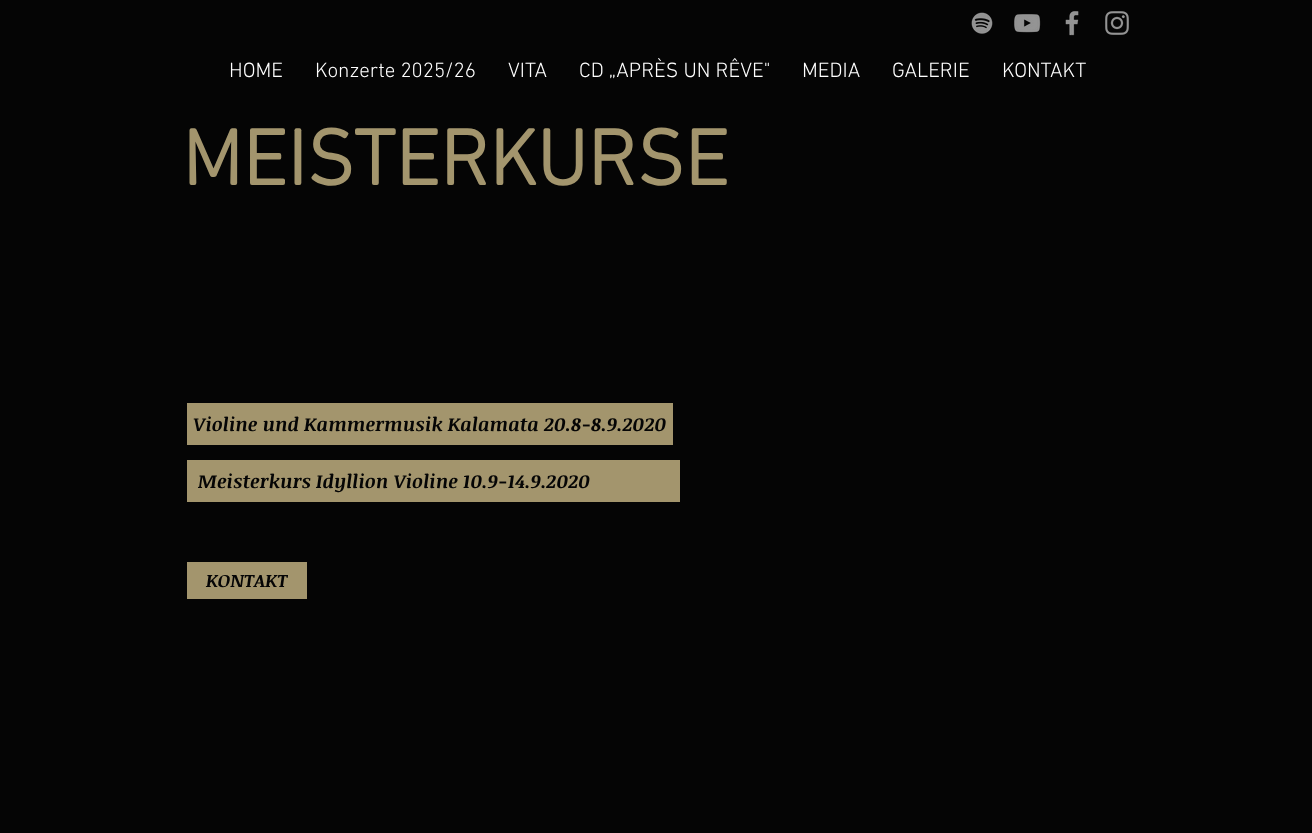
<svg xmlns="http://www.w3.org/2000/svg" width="1312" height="833">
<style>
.a{font:300 21px 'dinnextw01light';fill:#fff}
.b{font:bold 80px 'dinnextw01light';fill:#a3956d}
.c{font:italic bold 19px Noticia Text;fill:#050505}
.d{font:italic bold 18px Noticia Text;fill:#050505}
</style>
<rect width="100%" height="100%" fill="#050505"/>
<image href="1.png" x="971" y="12" width="22" height="22"/>
<image href="2.png" x="1014" y="14" width="27" height="19"/>
<image href="3.png" x="1065" y="11" width="14" height="25"/>
<image href="4.png" x="1105" y="11" width="24" height="24"/>
<path fill="#a3956d" d="M187 403h486v42H187z"/>
<path fill="#a3956d" d="M187 460h493v42H187z"/>
<path fill="#a3956d" d="M187 562h120v37H187z"/>
<text class="a" x="229" y="77">HOME</text>
<text class="a" x="315" y="77">Konzerte 2025/26</text>
<text class="a" x="508" y="77">VITA</text>
<text class="a" x="579" y="77">CD „APRÈS UN RÊVE"</text>
<text class="a" x="802" y="77">MEDIA</text>
<text class="a" x="892" y="77">GALERIE</text>
<text class="a" x="1002" y="77">KONTAKT</text>
<text class="b" x="182" y="185">MEISTERKURSE</text>
<text class="c" x="193" y="431">Violine und Kammermusik Kalamata 20.8-8.9.2020</text>
<text class="c" x="198" y="488">Meisterkurs Idyllion Violine 10.9-14.9.2020</text>
<text class="d" x="206" y="587">KONTAKT</text>
</svg>
